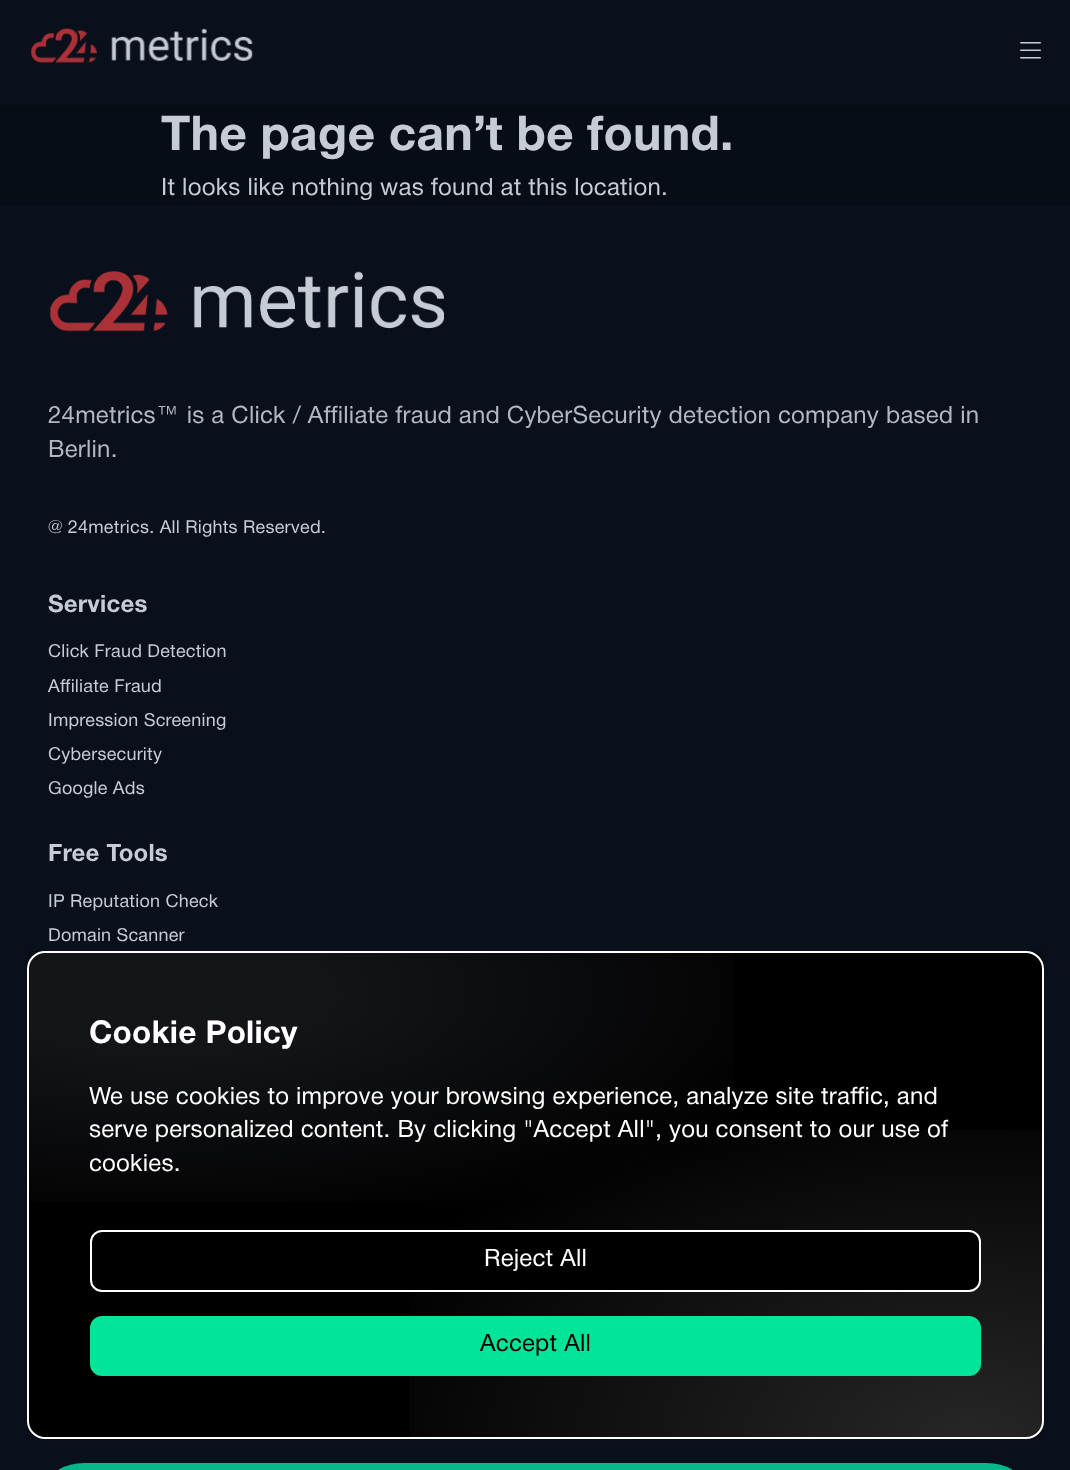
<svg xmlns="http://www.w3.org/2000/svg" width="1070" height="1470">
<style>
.a{font:bold 48px Helvetica Neue;letter-spacing:0.22px;fill:#c5ccd6}
.b{font:24px Helvetica Neue;letter-spacing:0.22px;fill:#c5ccd6}
.c{font:24px Helvetica Neue;letter-spacing:0.22px;fill:#b1b8c4}
.d{font:18px Helvetica Neue;letter-spacing:0.22px;fill:#c5ccd6}
.e{font:bold 24px Helvetica Neue;letter-spacing:0.22px;fill:#c5ccd6}
.f{font:bold 31.5px Helvetica Neue;letter-spacing:0.22px;fill:#fff}
.g{font:24px Helvetica Neue;letter-spacing:0.22px;fill:#fff}
.h{font:24px Helvetica Neue;letter-spacing:0.22px;fill:#000}
</style>
<defs>
<clipPath id="clip1"><path d="M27 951h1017v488H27z"/></clipPath>
<clipPath id="clip2"><rect x="27" y="951" width="1017" height="488" rx="18"/></clipPath>
<radialGradient id="g1" gradientUnits="userSpaceOnUse" cx="0" cy="0" r="1" gradientTransform="matrix(653 0 0 359 969 1437)"><stop offset="0" stop-color="#fff" stop-opacity="0.15"/><stop offset="1" stop-color="#fff" stop-opacity="0"/></radialGradient>
<radialGradient id="g2" gradientUnits="userSpaceOnUse" cx="0" cy="0" r="1" gradientTransform="matrix(684 0 0 249 164 993)"><stop offset="0.23" stop-color="#bfcfed" stop-opacity="0.1"/><stop offset="1" stop-color="#bfcfed" stop-opacity="0"/></radialGradient>
</defs>
<rect width="100%" height="100%" fill="#060d17"/>
<path fill="#09101b" d="M0 0h1070v105H0z"/>
<image href="1.png" x="31" y="28" width="222" height="35"/>
<image href="2.png" x="1020" y="42" width="21" height="17"/>
<path fill="#09101b" d="M0 206h1070v1264H0z"/>
<image href="3.png" x="49" y="271" width="395" height="61"/>
<rect fill="#06b88a" stroke="#06b88a" stroke-width="2" x="49" y="1464" width="973" height="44" rx="35.5"/>
<g clip-path="url(#clip1)">
<rect fill="#00000080" filter="blur(7.5px)" x="26" y="950" width="1020" height="490" rx="20"/>
</g>
<rect fill="#000" x="27" y="951" width="1017" height="488" rx="18"/>
<g clip-path="url(#clip2)">
<path fill="url(#g1)" d="M409 1130h634v307H409z"/>
<path fill="url(#g2)" d="M29 953h705v248H29z"/>
</g>
<rect fill="none" stroke="#fff" stroke-width="2" x="28" y="952" width="1015" height="486" rx="17"/>
<rect fill="#000" stroke="#fff" stroke-width="2" x="91" y="1231" width="889" height="60" rx="11"/>
<rect fill="#00e599" stroke="#00e599" stroke-width="2" x="91" y="1317" width="889" height="58" rx="11"/>
<text class="a" x="161" y="150">The page can’t be found.</text>
<text class="b" x="161" y="195">It looks like nothing was found at this location.</text>
<text class="c" x="48" y="423">24metrics™ is a Click / Affiliate fraud and CyberSecurity detection company based in</text>
<text class="c" x="48" y="457">Berlin.</text>
<text class="d" x="48" y="533">@ 24metrics. All Rights Reserved.</text>
<text class="e" x="48" y="612">Services</text>
<text class="d" x="48" y="657">Click Fraud Detection</text>
<text class="d" x="48" y="692">Affiliate Fraud</text>
<text class="d" x="48" y="726">Impression Screening</text>
<text class="d" x="48" y="760">Cybersecurity</text>
<text class="d" x="48" y="794">Google Ads</text>
<text class="e" x="48" y="861">Free Tools</text>
<text class="d" x="48" y="907">IP Reputation Check</text>
<text class="d" x="48" y="941">Domain Scanner</text>
<text class="f" x="89" y="1043">Cookie Policy</text>
<text class="g" x="89" y="1104">We use cookies to improve your browsing experience, analyze site traffic, and</text>
<text class="g" x="89" y="1137">serve personalized content. By clicking "Accept All", you consent to our use of</text>
<text class="g" x="89" y="1171">cookies.</text>
<text class="g" x="484" y="1266">Reject All</text>
<text class="h" x="480" y="1351">Accept All</text>
</svg>
